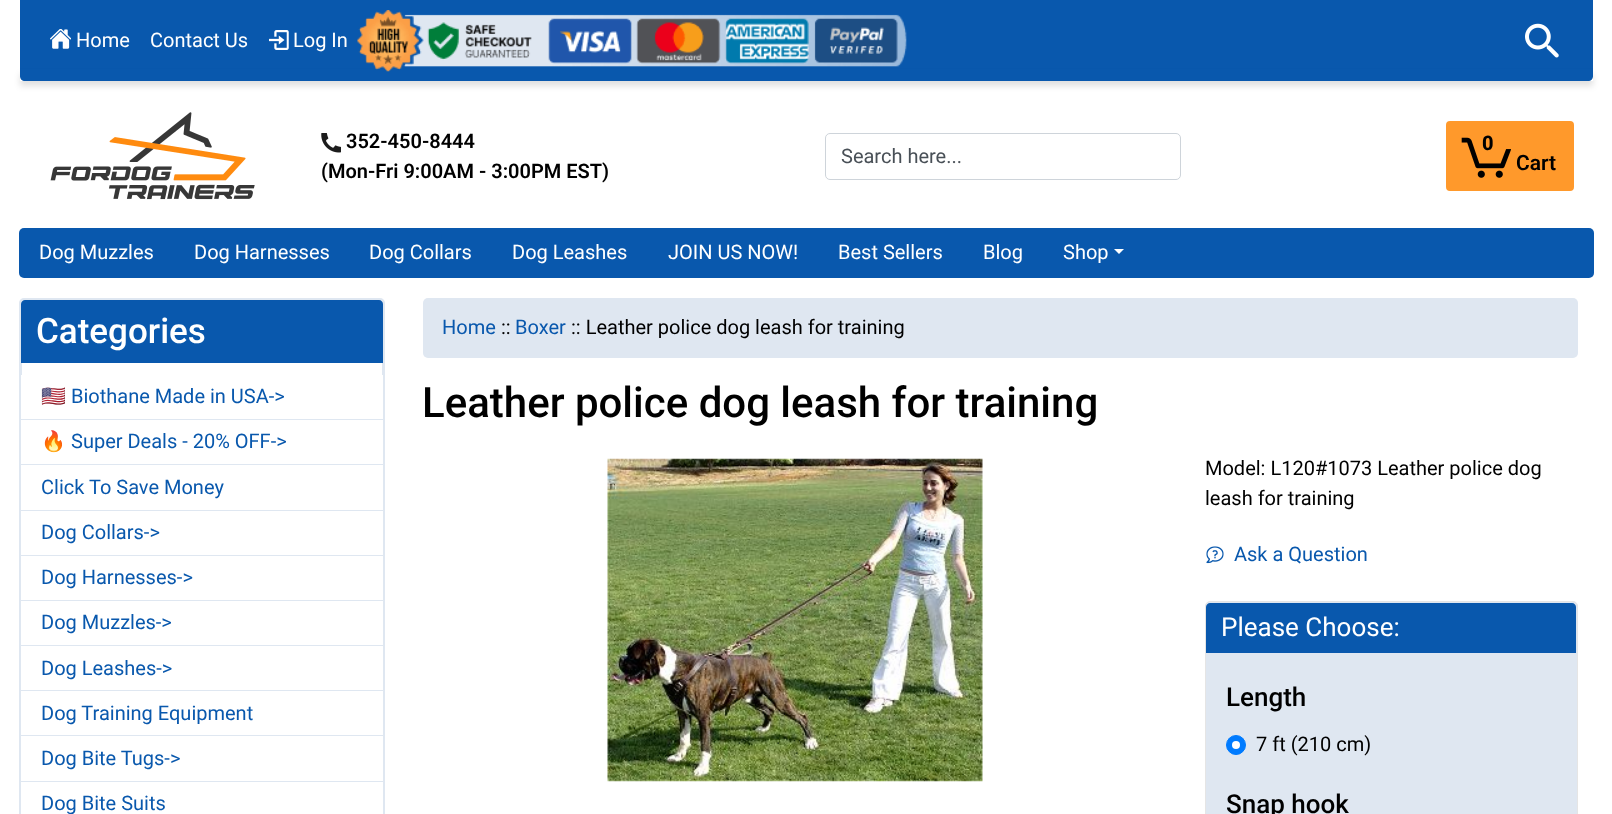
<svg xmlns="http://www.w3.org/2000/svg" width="1612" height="814">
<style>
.a{font:20px Roboto;fill:#fff}
.b{font:600 20px Roboto;fill:#000}
.c{font:20px Roboto;fill:#495057}
.d{font:800 20px Roboto;fill:#000}
.e{font:600 21px Roboto;fill:#000}
.f{font:500 35px Roboto;fill:#fff}
.g{font:20px Noto Color Emoji;fill:#0958ad}
.h{font:20px Roboto;fill:#0958ad}
.i{font:20px Roboto;fill:#000}
.j{font:500 42px Roboto;fill:#000}
.k{font:26px Roboto;fill:#fff}
.l{font:500 26px Roboto;fill:#000}
</style>
<defs>
<clipPath id="clip1"><path d="M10 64h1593v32h-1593zm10 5h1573v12h-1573z" clip-rule="evenodd"/></clipPath>
</defs>
<rect width="100%" height="100%" fill="#fff"/>
<path fill="#0958ad" d="M20 0h1573v76c0 3-2 5-5 5h-1563c-3 0-5-2-5-5z"/>
<image href="1.png" x="50" y="29" width="21" height="20"/>
<image href="2.png" x="269" y="30" width="20" height="20"/>
<image href="3.png" x="357" y="10" width="550" height="62"/>
<image href="4.png" x="1525" y="23" width="34" height="35"/>
<g clip-path="url(#clip1)">
<path fill="#0000001f" filter="blur(3px)" d="M20 74h1573v12H20z"/>
</g>
<image href="5.png" x="50" y="112" width="205" height="88"/>
<image href="6.png" x="321" y="133" width="20" height="20"/>
<rect fill="none" stroke="#ced4da" x="825.5" y="133.5" width="355" height="46" rx="4.5"/>
<rect fill="#ff992b" stroke="#ff992b" stroke-width="3" x="1447.5" y="122.5" width="125" height="67" rx="2.5"/>
<image href="7.png" x="1461" y="137" width="50" height="41"/>
<rect fill="#0958ad" x="19" y="228" width="1575" height="50" rx="5"/>
<path fill="#fff" d="M1114 249h10l-5 5z"/>
<rect fill="none" stroke="#dfe7f1" stroke-width="3" x="20.5" y="299.5" width="363" height="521" rx="3.5"/>
<path fill="#0958ad" d="M25 300h354c2 0 4 2 4 4v59h-362v-59c0-2 2-4 4-4z"/>
<path fill="#fff" d="M21 375h362v44H21z"/>
<path fill="#dfe7f1" d="M21 419h362v1H21z"/>
<path fill="#fff" d="M21 420h362v44H21z"/>
<path fill="#dfe7f1" d="M21 464h362v1H21z"/>
<path fill="#fff" d="M21 465h362v45H21z"/>
<path fill="#dfe7f1" d="M21 510h362v1H21z"/>
<path fill="#fff" d="M21 511h362v44H21z"/>
<path fill="#dfe7f1" d="M21 555h362v1H21z"/>
<path fill="#fff" d="M21 556h362v44H21z"/>
<path fill="#dfe7f1" d="M21 600h362v1H21z"/>
<path fill="#fff" d="M21 601h362v44H21z"/>
<path fill="#dfe7f1" d="M21 645h362v1H21z"/>
<path fill="#fff" d="M21 646h362v44H21z"/>
<path fill="#dfe7f1" d="M21 690h362v1H21z"/>
<path fill="#fff" d="M21 691h362v44H21z"/>
<path fill="#dfe7f1" d="M21 735h362v1H21z"/>
<path fill="#fff" d="M21 736h362v78H21z"/>
<path fill="#dfe7f1" d="M21 781h362v1H21z"/>
<rect fill="#dfe7f1" x="423" y="298" width="1155" height="60" rx="5"/>
<image href="8.png" x="607" y="458" width="376" height="324"/>
<image href="9.png" x="1206" y="546" width="18" height="18"/>
<rect fill="#dfe7f1" stroke="#e5e5e5" x="1205.5" y="601.5" width="372" height="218" rx="4.5"/>
<path fill="#0958ad" d="M1210 603h362c2 0 4 2 4 4v46h-370v-46c0-2 2-4 4-4z"/>
<circle fill="#007bff" stroke="#007bff" cx="1236" cy="745" r="9.5"/>
<circle fill="#fff" cx="1236" cy="745" r="4"/>
<text class="a" x="76" y="47">Home</text>
<text class="a" x="150" y="47">Contact Us</text>
<text class="a" x="293" y="47">Log In</text>
<text class="b" x="346" y="148">352-450-8444</text>
<text class="b" x="321" y="178">(Mon-Fri 9:00AM - 3:00PM EST)</text>
<text class="c" x="841" y="163">Search here...</text>
<text class="d" x="1482" y="150">0</text>
<text class="e" x="1516" y="170">Cart</text>
<text class="a" x="39" y="259">Dog Muzzles</text>
<text class="a" x="194" y="259">Dog Harnesses</text>
<text class="a" x="369" y="259">Dog Collars</text>
<text class="a" x="512" y="259">Dog Leashes</text>
<text class="a" x="668" y="259">JOIN US NOW!</text>
<text class="a" x="838" y="259">Best Sellers</text>
<text class="a" x="983" y="259">Blog</text>
<text class="a" x="1063" y="259">Shop</text>
<text class="f" x="36" y="343">Categories</text>
<text class="g" x="41" y="403">🇺🇸</text>
<text class="h" x="71" y="403">Biothane Made in USA-&gt;</text>
<text class="g" x="41" y="448">🔥</text>
<text class="h" x="71" y="448">Super Deals - 20% OFF-&gt;</text>
<text class="h" x="41" y="494">Click To Save Money</text>
<text class="h" x="41" y="539">Dog Collars-&gt;</text>
<text class="h" x="41" y="584">Dog Harnesses-&gt;</text>
<text class="h" x="41" y="629">Dog Muzzles-&gt;</text>
<text class="h" x="41" y="675">Dog Leashes-&gt;</text>
<text class="h" x="41" y="720">Dog Training Equipment</text>
<text class="h" x="41" y="765">Dog Bite Tugs-&gt;</text>
<text class="h" x="41" y="810">Dog Bite Suits</text>
<text class="h" x="442" y="334">Home</text>
<text class="i" x="501" y="334">::</text>
<text class="h" x="515" y="334">Boxer</text>
<text class="i" x="571" y="334">:: Leather police dog leash for training</text>
<text class="j" x="422" y="417">Leather police dog leash for training</text>
<text class="i" x="1205" y="475">Model: L120#1073 Leather police dog</text>
<text class="i" x="1205" y="505">leash for training</text>
<text class="h" x="1234" y="561">Ask a Question</text>
<text class="k" x="1221" y="636">Please Choose:</text>
<text class="l" x="1226" y="706">Length</text>
<text class="i" x="1256" y="751">7 ft (210 cm)</text>
<text class="l" x="1226" y="813">Snap hook</text>
</svg>
